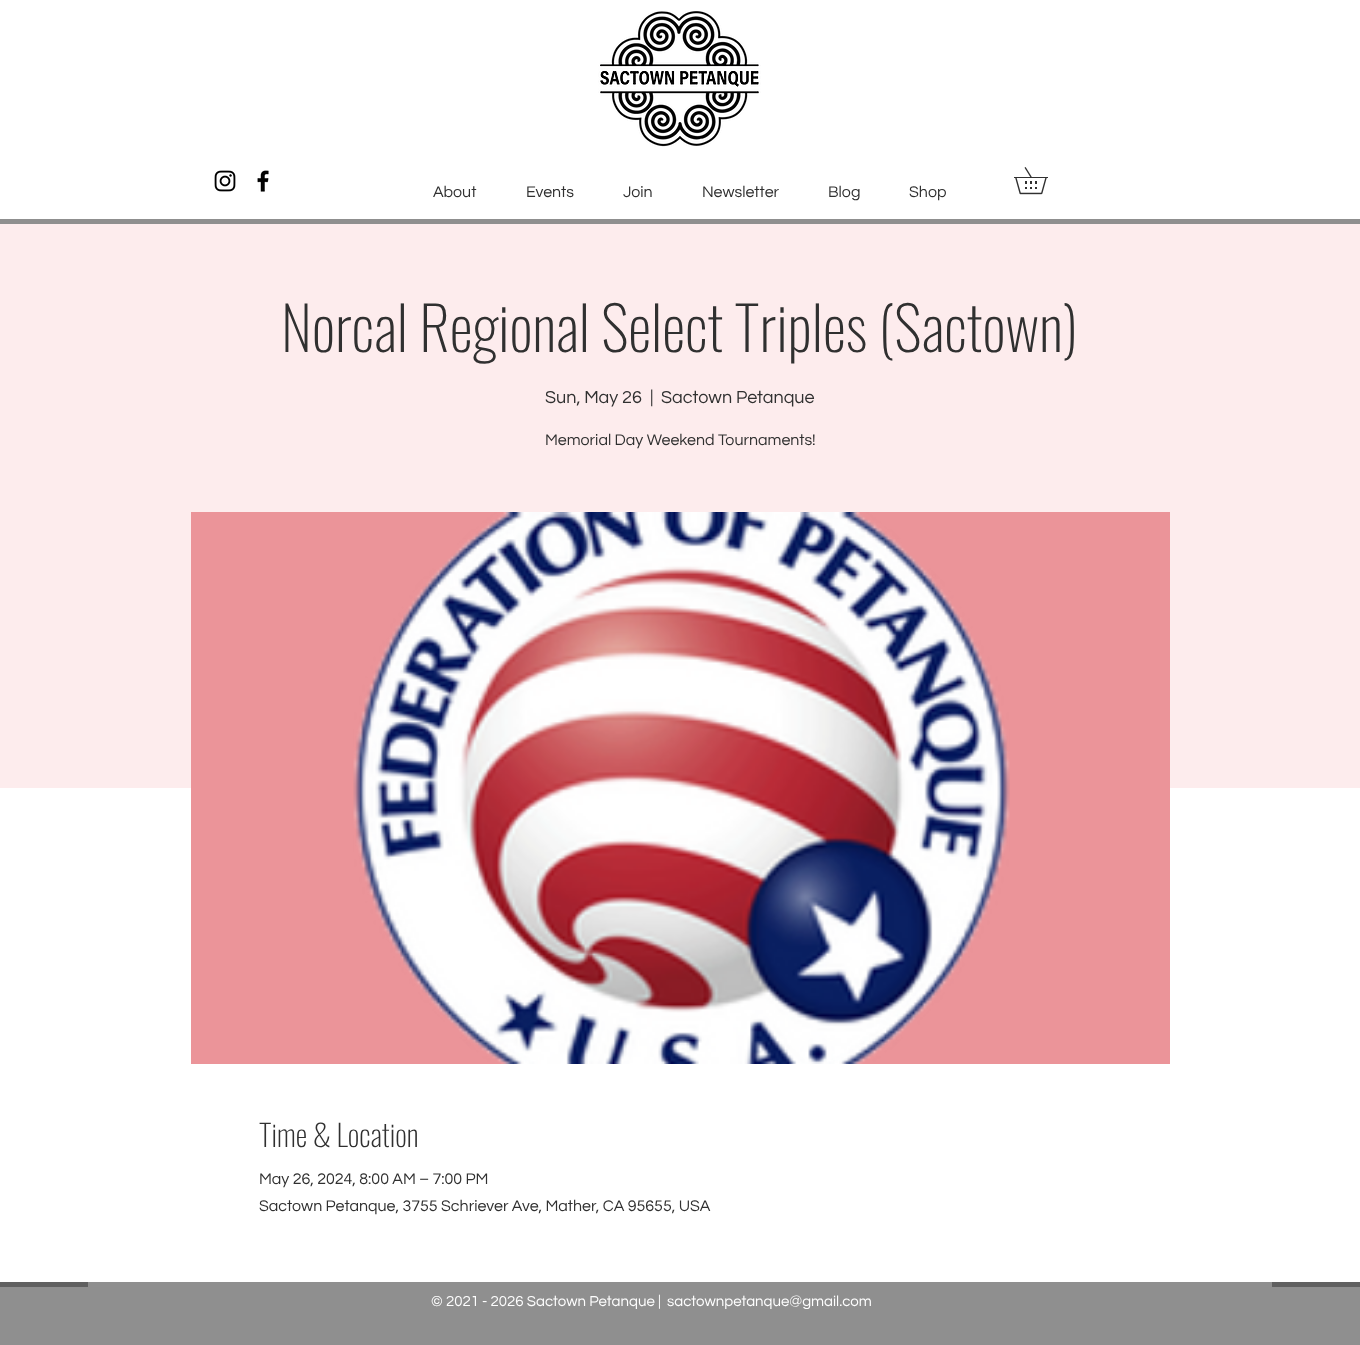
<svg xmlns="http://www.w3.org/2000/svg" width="1360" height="1345">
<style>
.a{font:16px Questrial;fill:#303030}
.b{font:200 60px Oswald;fill:#303030}
.c{font:18px Questrial;fill:#303030}
.d{font:200 30px Oswald;fill:#303030}
.e{font:15px Questrial;fill:#fff}
</style>
<rect width="100%" height="100%" fill="#fff"/>
<image href="1.png" x="598" y="11" width="163" height="136"/>
<image href="2.png" x="214" y="170" width="22" height="22"/>
<image href="3.png" x="257" y="170" width="12" height="22"/>
<image href="4.png" x="1014" y="167" width="34" height="28"/>
<path fill="#8f8f8f" d="M0 219h1360v5H0z"/>
<path fill="#fdeced" d="M0 224h1360v564H0z"/>
<path fill="#eb9499" d="M191 512h979v552H191z"/>
<image href="5.png" x="353" y="512" width="657" height="552"/>
<path fill="#8f8f8f" d="M0 1287h1360v58H0z"/>
<path fill="#606060" d="M0 1282h1360v5H0z"/>
<path fill="#8f8f8f" d="M88 1282h1184v5H88z"/>
<text class="a" x="433" y="197">About</text>
<text class="a" x="526" y="197">Events</text>
<text class="a" x="623" y="197">Join</text>
<text class="a" x="702" y="197">Newsletter</text>
<text class="a" x="828" y="197">Blog</text>
<text class="a" x="909" y="197">Shop</text>
<text class="b" x="281" y="352">Norcal Regional Select Triples (Sactown)</text>
<text class="c" x="545" y="403">Sun, May 26</text>
<text class="c" x="650" y="403">|</text>
<text class="c" x="661" y="403">Sactown Petanque</text>
<text class="a" x="545" y="445">Memorial Day Weekend Tournaments!</text>
<text class="d" x="259" y="1147">Time &amp; Location</text>
<text class="a" x="259" y="1184">May 26, 2024, 8:00 AM – 7:00 PM</text>
<text class="a" x="259" y="1211">Sactown Petanque, 3755 Schriever Ave, Mather, CA 95655, USA</text>
<text class="e" x="431" y="1306">© 2021 - 2026 Sactown Petanque |</text>
<text class="e" x="667" y="1306">sactownpetanque@gmail.com</text>
</svg>
